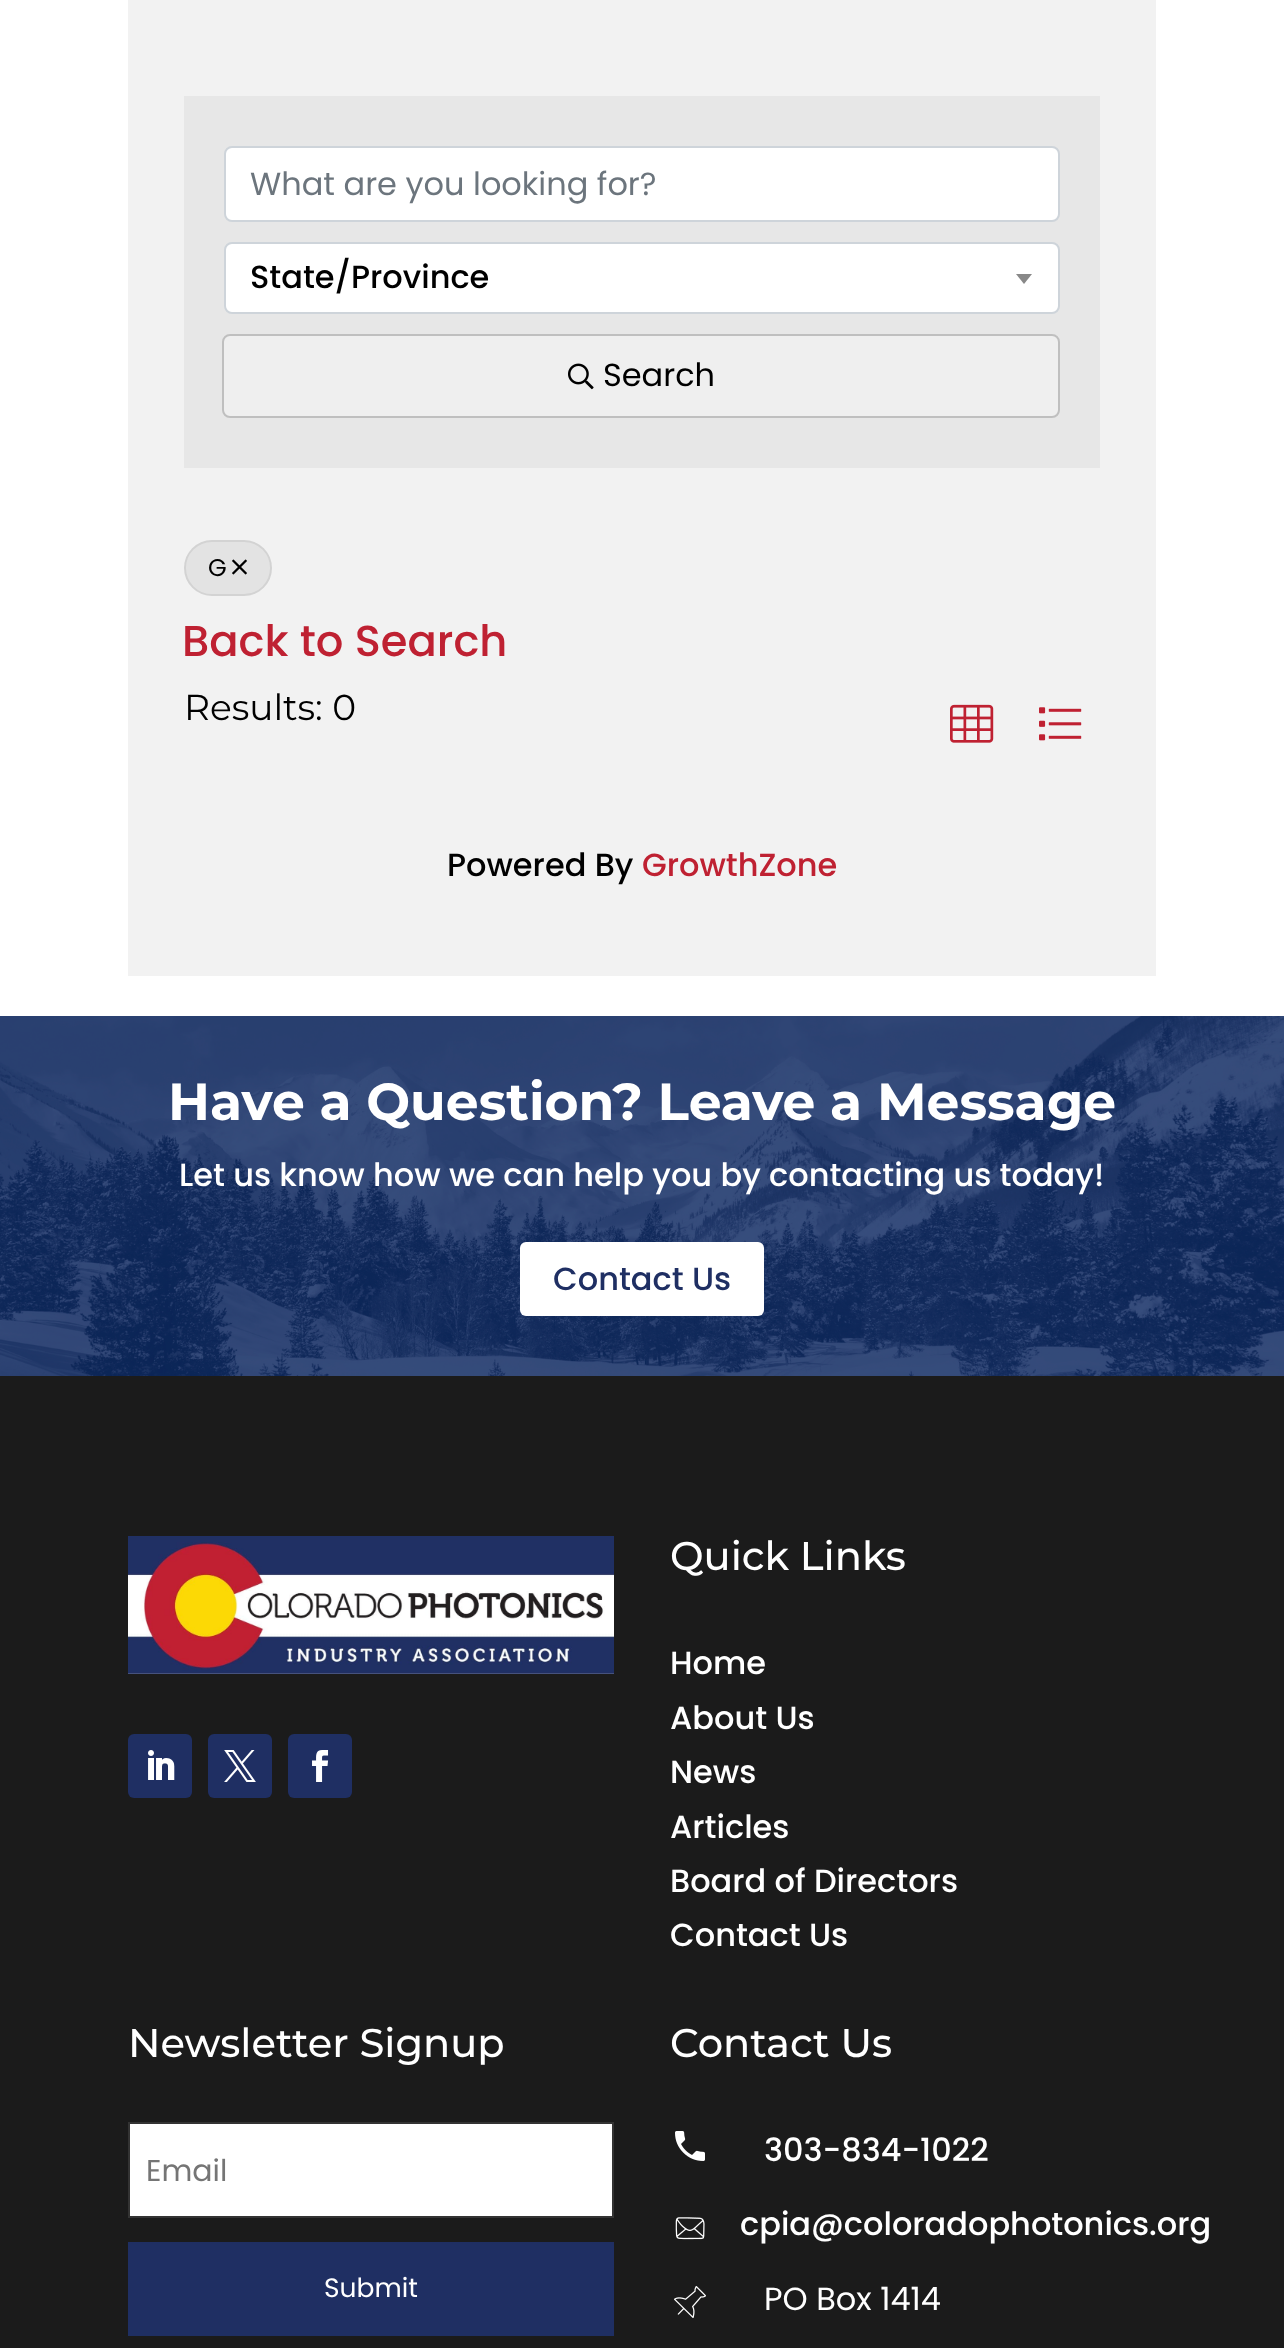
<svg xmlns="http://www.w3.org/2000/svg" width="1284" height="2348">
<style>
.a{font:32px Poppins;fill:#6c757d}
.b{font:500 32px Poppins;fill:#000}
.c{font:32px Poppins;fill:#000}
.d{font:24px Poppins;fill:#000}
.e{font:500 43.25px Poppins;fill:#bf2132}
.f{font:36px Montserrat;fill:#000}
.g{font:500 32px Poppins;fill:#bf2132}
.h{font:bold 52px Montserrat;fill:#fff}
.i{font:500 32px Poppins;fill:#fff}
.j{font:500 32px Poppins;fill:#1f2f63}
.k{font:500 40px Montserrat;fill:#fff}
.l{font:30px Poppins;fill:#757575}
.m{font:26.5px Poppins;fill:#fff}
.n{font:32px Poppins;fill:#fff}
</style>
<rect width="100%" height="100%" fill="#fff"/>
<path fill="#f2f2f2" d="M128 0h1028v976H128z"/>
<path fill="#e7e7e7" d="M184 96h916v372H184z"/>
<rect fill="#fff" stroke="#ced4da" stroke-width="2" x="225" y="147" width="834" height="74" rx="7"/>
<rect fill="#fff" stroke="#ced4da" stroke-width="2" x="225" y="243" width="834" height="70" rx="7"/>
<path fill="#888" d="M1016 274h16l-8 10z"/>
<rect fill="#efefef" x="222" y="334" width="838" height="84" rx="8"/>
<rect fill="none" stroke="#00000033" stroke-width="2" x="223" y="335" width="836" height="82" rx="7"/>
<image href="1.png" x="568" y="363" width="26" height="27"/>
<rect fill="#e3e3e3" x="184" y="540" width="88" height="56" rx="28"/>
<rect fill="none" stroke="#00000012" stroke-width="2" x="185" y="541" width="86" height="54" rx="27"/>
<image href="2.png" x="232" y="559" width="15" height="16"/>
<image href="3.png" x="950" y="704" width="44" height="39"/>
<image href="4.png" x="1039" y="707" width="43" height="34"/>
<image href="5.png" x="0" y="1016" width="1284" height="360"/>
<rect fill="#fff" x="520" y="1242" width="244" height="74" rx="6"/>
<path fill="#1b1b1b" d="M0 1376h1284v972H0z"/>
<image href="6.png" x="128" y="1536" width="486" height="138"/>
<rect fill="#1f2f63" x="128" y="1734" width="64" height="64" rx="6"/>
<image href="7.png" x="148" y="1750" width="27" height="30"/>
<rect fill="#1f2f63" x="208" y="1734" width="64" height="64" rx="6"/>
<image href="8.png" x="224" y="1750" width="32" height="32"/>
<rect fill="#1f2f63" x="288" y="1734" width="64" height="64" rx="6"/>
<image href="9.png" x="312" y="1750" width="17" height="32"/>
<path fill="#fff" stroke="#333" stroke-width="2" d="M129 2123h484v94H129z"/>
<path fill="#1f2f63" d="M128 2242h486v94H128z"/>
<image href="10.png" x="675" y="2131" width="30" height="30"/>
<image href="11.png" x="675" y="2217" width="30" height="23"/>
<image href="12.png" x="674" y="2286" width="32" height="32"/>
<text class="a" x="250" y="195">What are you looking for?</text>
<text class="b" x="250" y="288">State/Province</text>
<text class="c" x="603" y="386">Search</text>
<text class="d" x="208" y="576">G</text>
<text class="e" x="182" y="656">Back to Search</text>
<text class="f" x="184" y="720">Results: 0</text>
<text class="b" x="447" y="876">Powered By</text>
<text class="g" x="642" y="876">GrowthZone</text>
<text class="h" x="168" y="1120">Have a Question? Leave a Message</text>
<text class="i" x="179" y="1186">Let us know how we can help you by contacting us today!</text>
<text class="j" x="553" y="1290">Contact Us</text>
<text class="k" x="670" y="1570">Quick Links</text>
<text class="i" x="670" y="1674">Home</text>
<text class="i" x="670" y="1729">About Us</text>
<text class="i" x="670" y="1783">News</text>
<text class="i" x="670" y="1838">Articles</text>
<text class="i" x="670" y="1892">Board of Directors</text>
<text class="i" x="670" y="1946">Contact Us</text>
<text class="k" x="128" y="2057">Newsletter Signup</text>
<text class="l" x="146" y="2181">Email</text>
<text class="m" x="324" y="2297">Submit</text>
<text class="k" x="670" y="2057">Contact Us</text>
<text class="i" x="764" y="2161">303-834-1022</text>
<text class="i" x="740" y="2235">cpia@coloradophotonics.org</text>
<text class="n" x="764" y="2310">PO Box 1414</text>
</svg>
